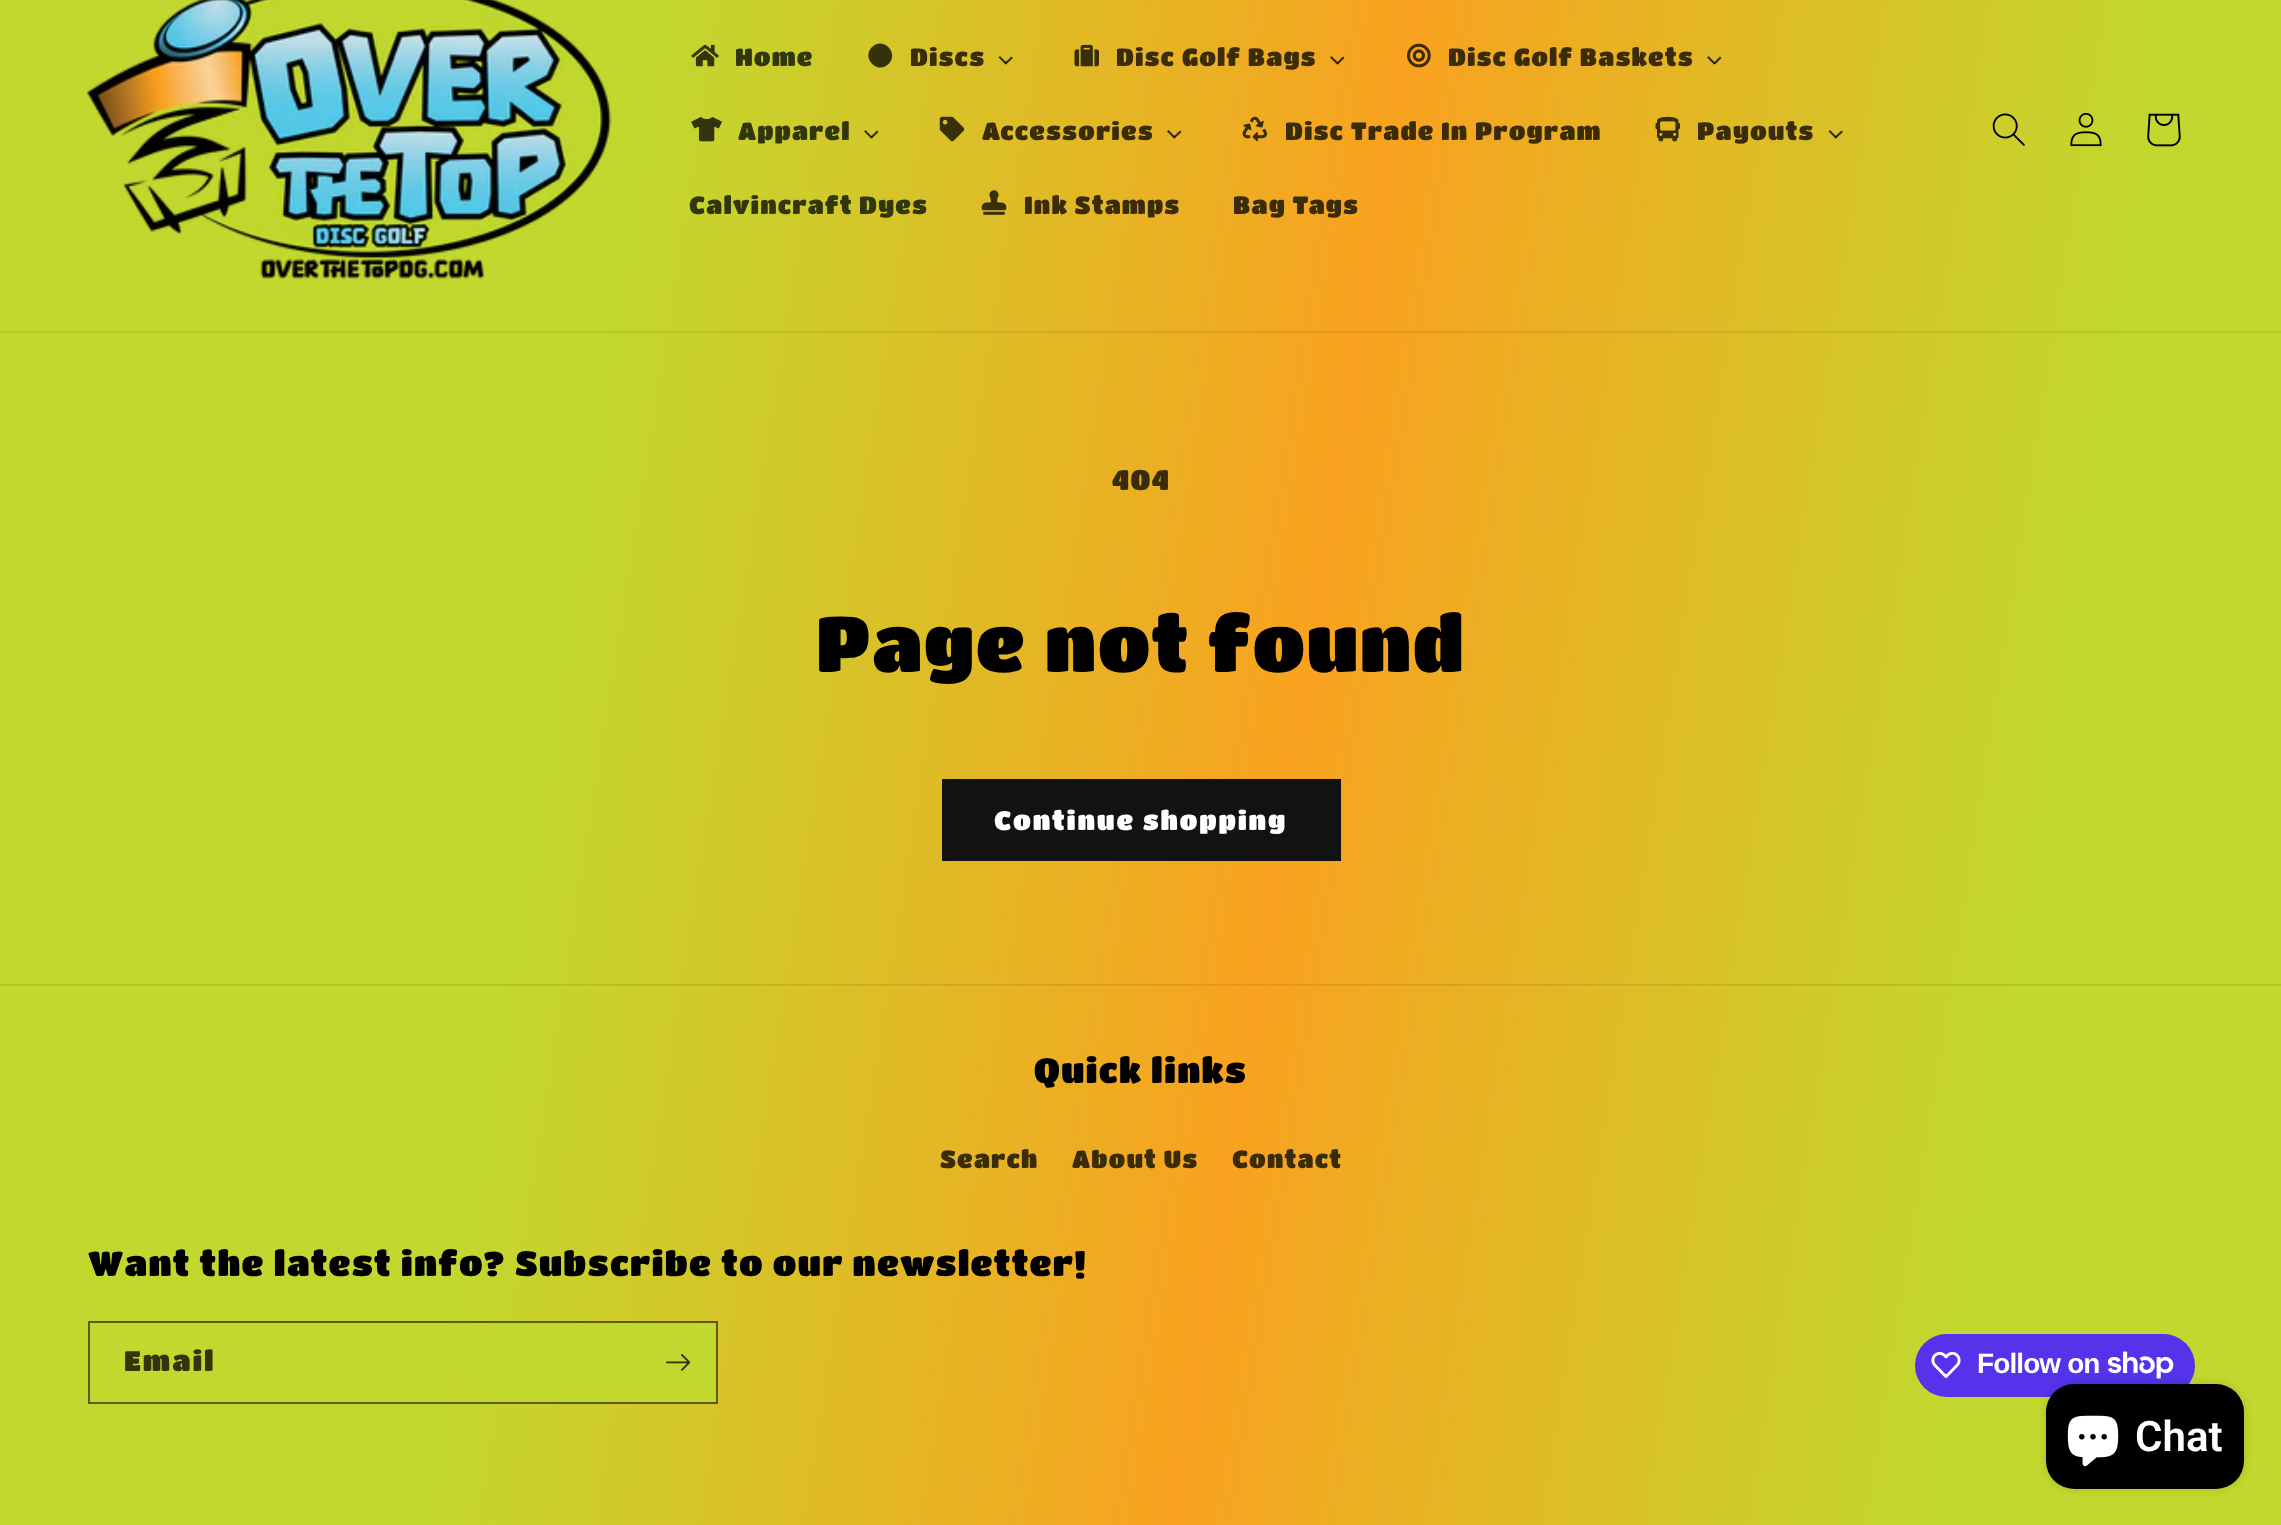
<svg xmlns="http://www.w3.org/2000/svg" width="2281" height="1525">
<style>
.a{font:24.5px Titan One;letter-spacing:1.05px;fill:#31360c}
.b{font:24.5px Titan One;letter-spacing:1.05px;fill:#3b2c09}
.c{font:28px Titan One;letter-spacing:1.05px;fill:#3b2c09}
.d{font:77px Titan One;letter-spacing:1.15px;fill:#000}
.e{font:26.25px Titan One;letter-spacing:1.75px;fill:#fff}
.f{font:34.6px Titan One;letter-spacing:1.15px;fill:#000}
.g{font:28px Titan One;letter-spacing:1.75px;fill:#31360c}
.h{font:bold 28px Liberation Sans;letter-spacing:-0.9px;fill:#fff}
.i{font:600 42px Roboto;fill:#fff}
</style>
<defs>
<linearGradient id="g1" gradientUnits="userSpaceOnUse" x1="-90" y1="568" x2="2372" y2="958"><stop offset="0.26" stop-color="#c2d82e"/><stop offset="0.56" stop-color="#f9a21f"/><stop offset="0.86" stop-color="#c2d82e"/></linearGradient>
<linearGradient id="g2" gradientUnits="userSpaceOnUse" x1="-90" y1="568" x2="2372" y2="958"><stop offset="0.26" stop-color="#b2c72a"/><stop offset="0.56" stop-color="#e5951d"/><stop offset="0.86" stop-color="#b2c72a"/></linearGradient>
</defs>
<rect width="100%" height="100%" fill="#fff"/>
<path fill="url(#g1)" d="M0 0h2281v1525H0z"/>
<path fill="url(#g2)" d="M0 331h2281v2H0z"/>
<path fill="url(#g2)" d="M0 984h2281v2H0z"/>
<image href="1.png" x="87" y="0" width="525" height="279"/>
<image href="2.png" x="691" y="44" width="28" height="23"/>
<path fill="#35320a" d="M872 47c11-11 27.5 6 16.5 17c-11 11-27.5-6-16.5-17z"/>
<path fill="#37300a" d="M1011.5 56.5l1.5 1.5l-7 6.5l-1.5-1.5z"/>
<path fill="#000000bf" d="M1000 56l7 7l-1.5 1.5l-7-7z"/>
<image href="3.png" x="1074" y="44" width="25" height="23"/>
<path fill="#3d2a08" d="M1343 56.5l1.5 1.5l-6.5 6.5l-1.5-1.5z"/>
<path fill="#000000bf" d="M1331.5 56l7 7l-1.5 1.5l-7-7z"/>
<image href="4.png" x="1407" y="43" width="24" height="25"/>
<path fill="#392e09" d="M1720 56.5l1.5 1.5l-6.5 6.5l-1.5-1.5z"/>
<path fill="#000000bf" d="M1708.5 56l7 7l-1.5 1.5l-7-7z"/>
<image href="5.png" x="691" y="116" width="31" height="26"/>
<path fill="#35320a" d="M877 130.5l1.5 1.5l-6.5 6.5l-1.5-1.5z"/>
<path fill="#000000bf" d="M865.5 130l7 7l-1.5 1.5l-7-7z"/>
<image href="6.png" x="939" y="116" width="26" height="26"/>
<path fill="#3a2c09" d="M1180 130.5l1.5 1.5l-7 6.5l-1.5-1.5z"/>
<path fill="#000000bf" d="M1168.5 130l7 7l-1.5 1.5l-7-7z"/>
<image href="7.png" x="1242" y="116" width="25" height="26"/>
<image href="8.png" x="1655" y="116" width="25" height="26"/>
<path fill="#36310a" d="M1841.5 130.5l1.5 1.5l-7 6.5l-1.5-1.5z"/>
<path fill="#000000bf" d="M1830 130l7 7l-1.5 1.5l-7-7z"/>
<image href="9.png" x="981" y="190" width="26" height="25"/>
<image href="10.png" x="1992" y="113" width="33" height="33"/>
<image href="11.png" x="2070" y="112" width="32" height="35"/>
<image href="12.png" x="2147" y="113" width="34" height="34"/>
<path fill="#121212" d="M942 779h399v82H942z"/>
<path fill="#c2d82e" d="M469 1323h247v79H469z"/>
<path fill="none" stroke="#0000008c" stroke-width="2" d="M89 1322h628v81H89z"/>
<image href="13.png" x="666" y="1354" width="25" height="17"/>
<rect fill="#5433eb" x="1915" y="1334" width="280" height="63" rx="31.5"/>
<image href="14.png" x="1931" y="1351" width="30" height="28"/>
<image href="15.png" x="2107" y="1351" width="67" height="28"/>
<rect fill="#00000026" filter="blur(4.5px)" x="2046" y="1384" width="198" height="105" rx="28"/>
<rect fill="#000" x="2046" y="1384" width="198" height="105" rx="28"/>
<image href="16.png" x="2067" y="1415" width="52" height="52"/>
<text class="a" x="735" y="66">Home</text>
<text class="b" x="910" y="66">Discs</text>
<text class="b" x="1116" y="66">Disc Golf Bags</text>
<text class="b" x="1448" y="66">Disc Golf Baskets</text>
<text class="a" x="738" y="140">Apparel</text>
<text class="b" x="982" y="140">Accessories</text>
<text class="b" x="1285" y="140">Disc Trade In Program</text>
<text class="b" x="1697" y="140">Payouts</text>
<text class="a" x="689" y="214">Calvincraft Dyes</text>
<text class="b" x="1024" y="214">Ink Stamps</text>
<text class="b" x="1233" y="214">Bag Tags</text>
<text class="c" x="1112" y="490">404</text>
<text class="d" x="816" y="672">Page not found</text>
<text class="e" x="994" y="830">Continue shopping</text>
<text class="f" x="1034" y="1083">Quick links</text>
<text class="b" x="940" y="1168">Search</text>
<text class="b" x="1072" y="1168">About Us</text>
<text class="b" x="1232" y="1168">Contact</text>
<text class="f" x="88" y="1276">Want the latest info?</text>
<text class="f" x="515" y="1276">Subscribe to our newsletter!</text>
<text class="g" x="124" y="1371">Email</text>
<text class="h" x="1977" y="1373">Follow on</text>
<text class="i" x="2135" y="1451">Chat</text>
</svg>
